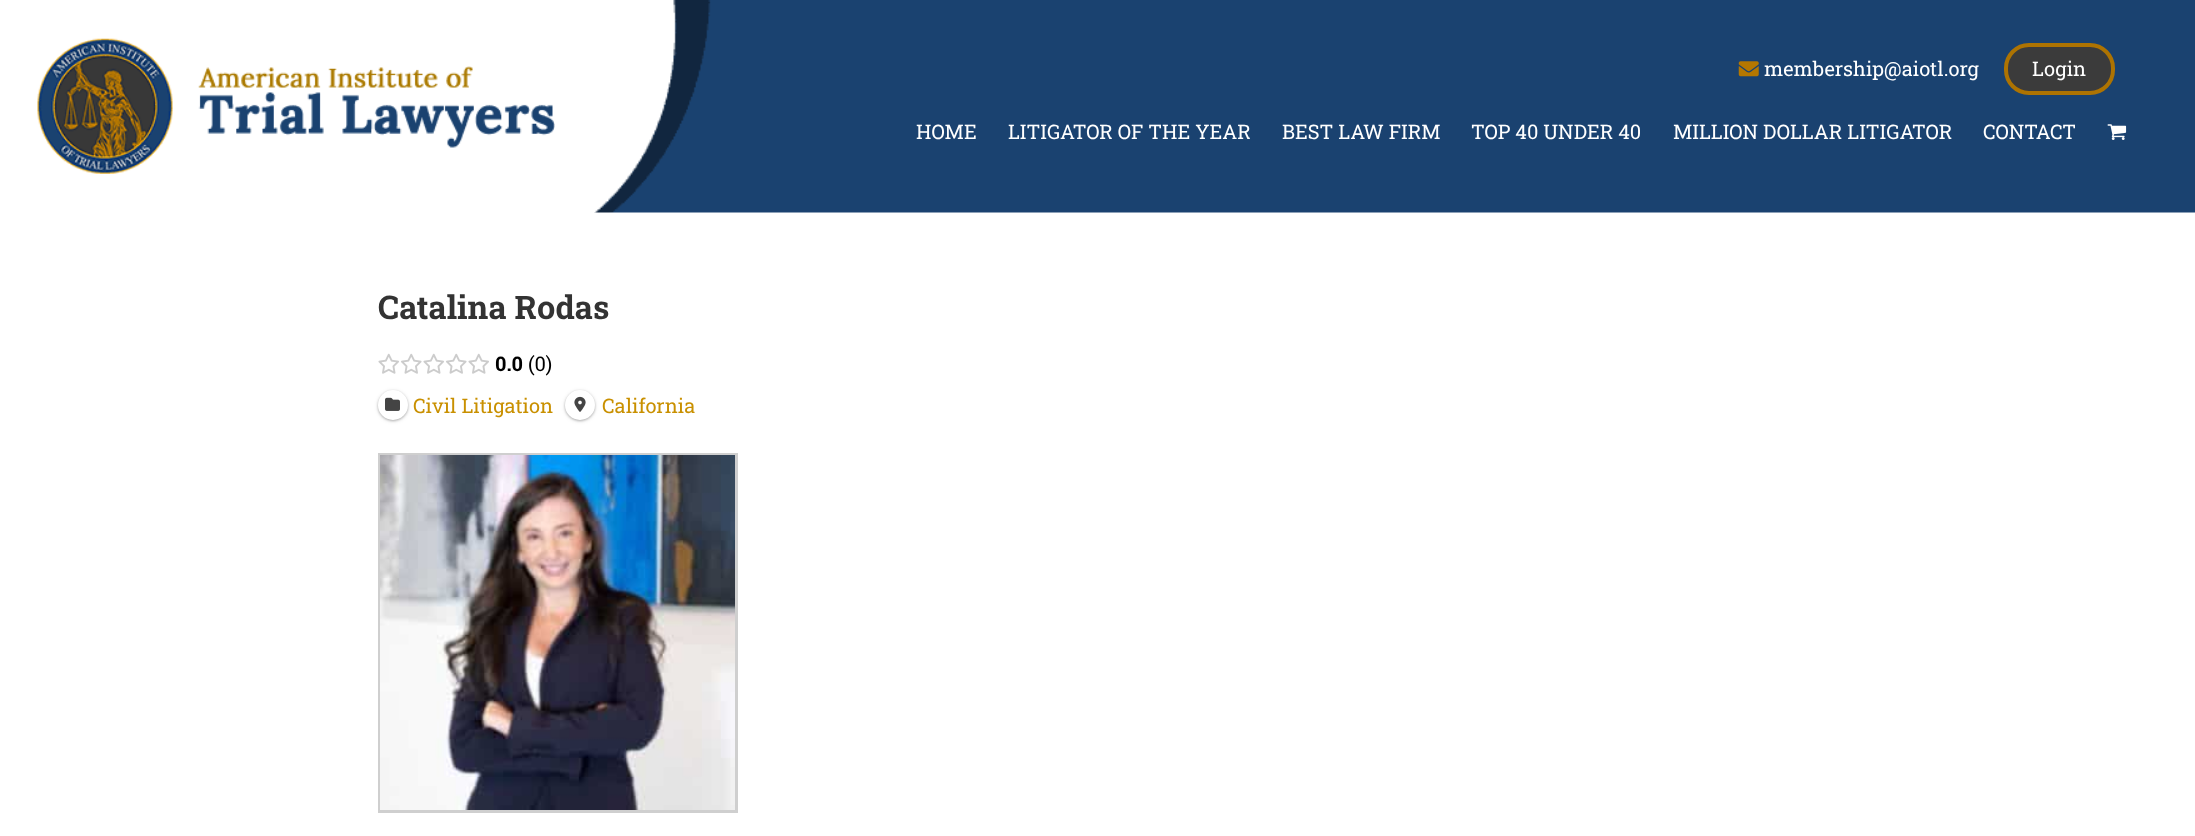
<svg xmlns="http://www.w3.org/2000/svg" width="2195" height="836">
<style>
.a{font:20px Roboto Slab;fill:#fff}
.b{font:bold 32.5px Roboto Slab;fill:#333}
.c{font:bold 20px Roboto Slab;fill:#000}
.d{font:20px Roboto Slab;fill:#000}
.e{font:20px Roboto Slab;fill:#c99000}
</style>
<rect width="100%" height="100%" fill="#fff"/>
<image href="1.png" x="594" y="0" width="1601" height="213"/>
<image href="2.png" x="37" y="38" width="518" height="136"/>
<image href="3.png" x="1738" y="61" width="21" height="16"/>
<rect fill="#3b3b3b" stroke="#ad7302" stroke-width="4" x="2006" y="45" width="107" height="48" rx="23"/>
<image href="4.png" x="2107" y="124" width="20" height="16"/>
<image href="5.png" x="378" y="353" width="111" height="21"/>
<rect fill="#0000003d" filter="blur(1px)" x="378" y="391" width="30" height="30" rx="15"/>
<rect fill="#0000001f" filter="blur(2px)" x="378" y="391" width="30" height="30" rx="15"/>
<circle fill="#fff" cx="393" cy="405" r="15"/>
<image href="6.png" x="385" y="397" width="15" height="14"/>
<rect fill="#0000003d" filter="blur(1px)" x="565" y="391" width="30" height="30" rx="15"/>
<rect fill="#0000001f" filter="blur(2px)" x="565" y="391" width="30" height="30" rx="15"/>
<circle fill="#fff" cx="580" cy="405" r="15"/>
<image href="7.png" x="574" y="396" width="12" height="16"/>
<path fill="none" stroke="#cfcfcf" stroke-width="3" d="M379.5 454.5h357v357H379.5z"/>
<image href="8.png" x="380" y="455" width="355" height="355"/>
<text class="a" x="1764" y="76">membership@aiotl.org</text>
<text class="a" x="2032" y="76">Login</text>
<text class="a" x="916" y="139">HOME</text>
<text class="a" x="1008" y="139">LITIGATOR OF THE YEAR</text>
<text class="a" x="1282" y="139">BEST LAW FIRM</text>
<text class="a" x="1471" y="139">TOP 40 UNDER 40</text>
<text class="a" x="1673" y="139">MILLION DOLLAR LITIGATOR</text>
<text class="a" x="1983" y="139">CONTACT</text>
<text class="b" x="378" y="319">Catalina Rodas</text>
<text class="c" x="495" y="371">0.0</text>
<text class="d" x="528" y="371">(0)</text>
<text class="e" x="413" y="413">Civil Litigation</text>
<text class="e" x="602" y="413">California</text>
</svg>
